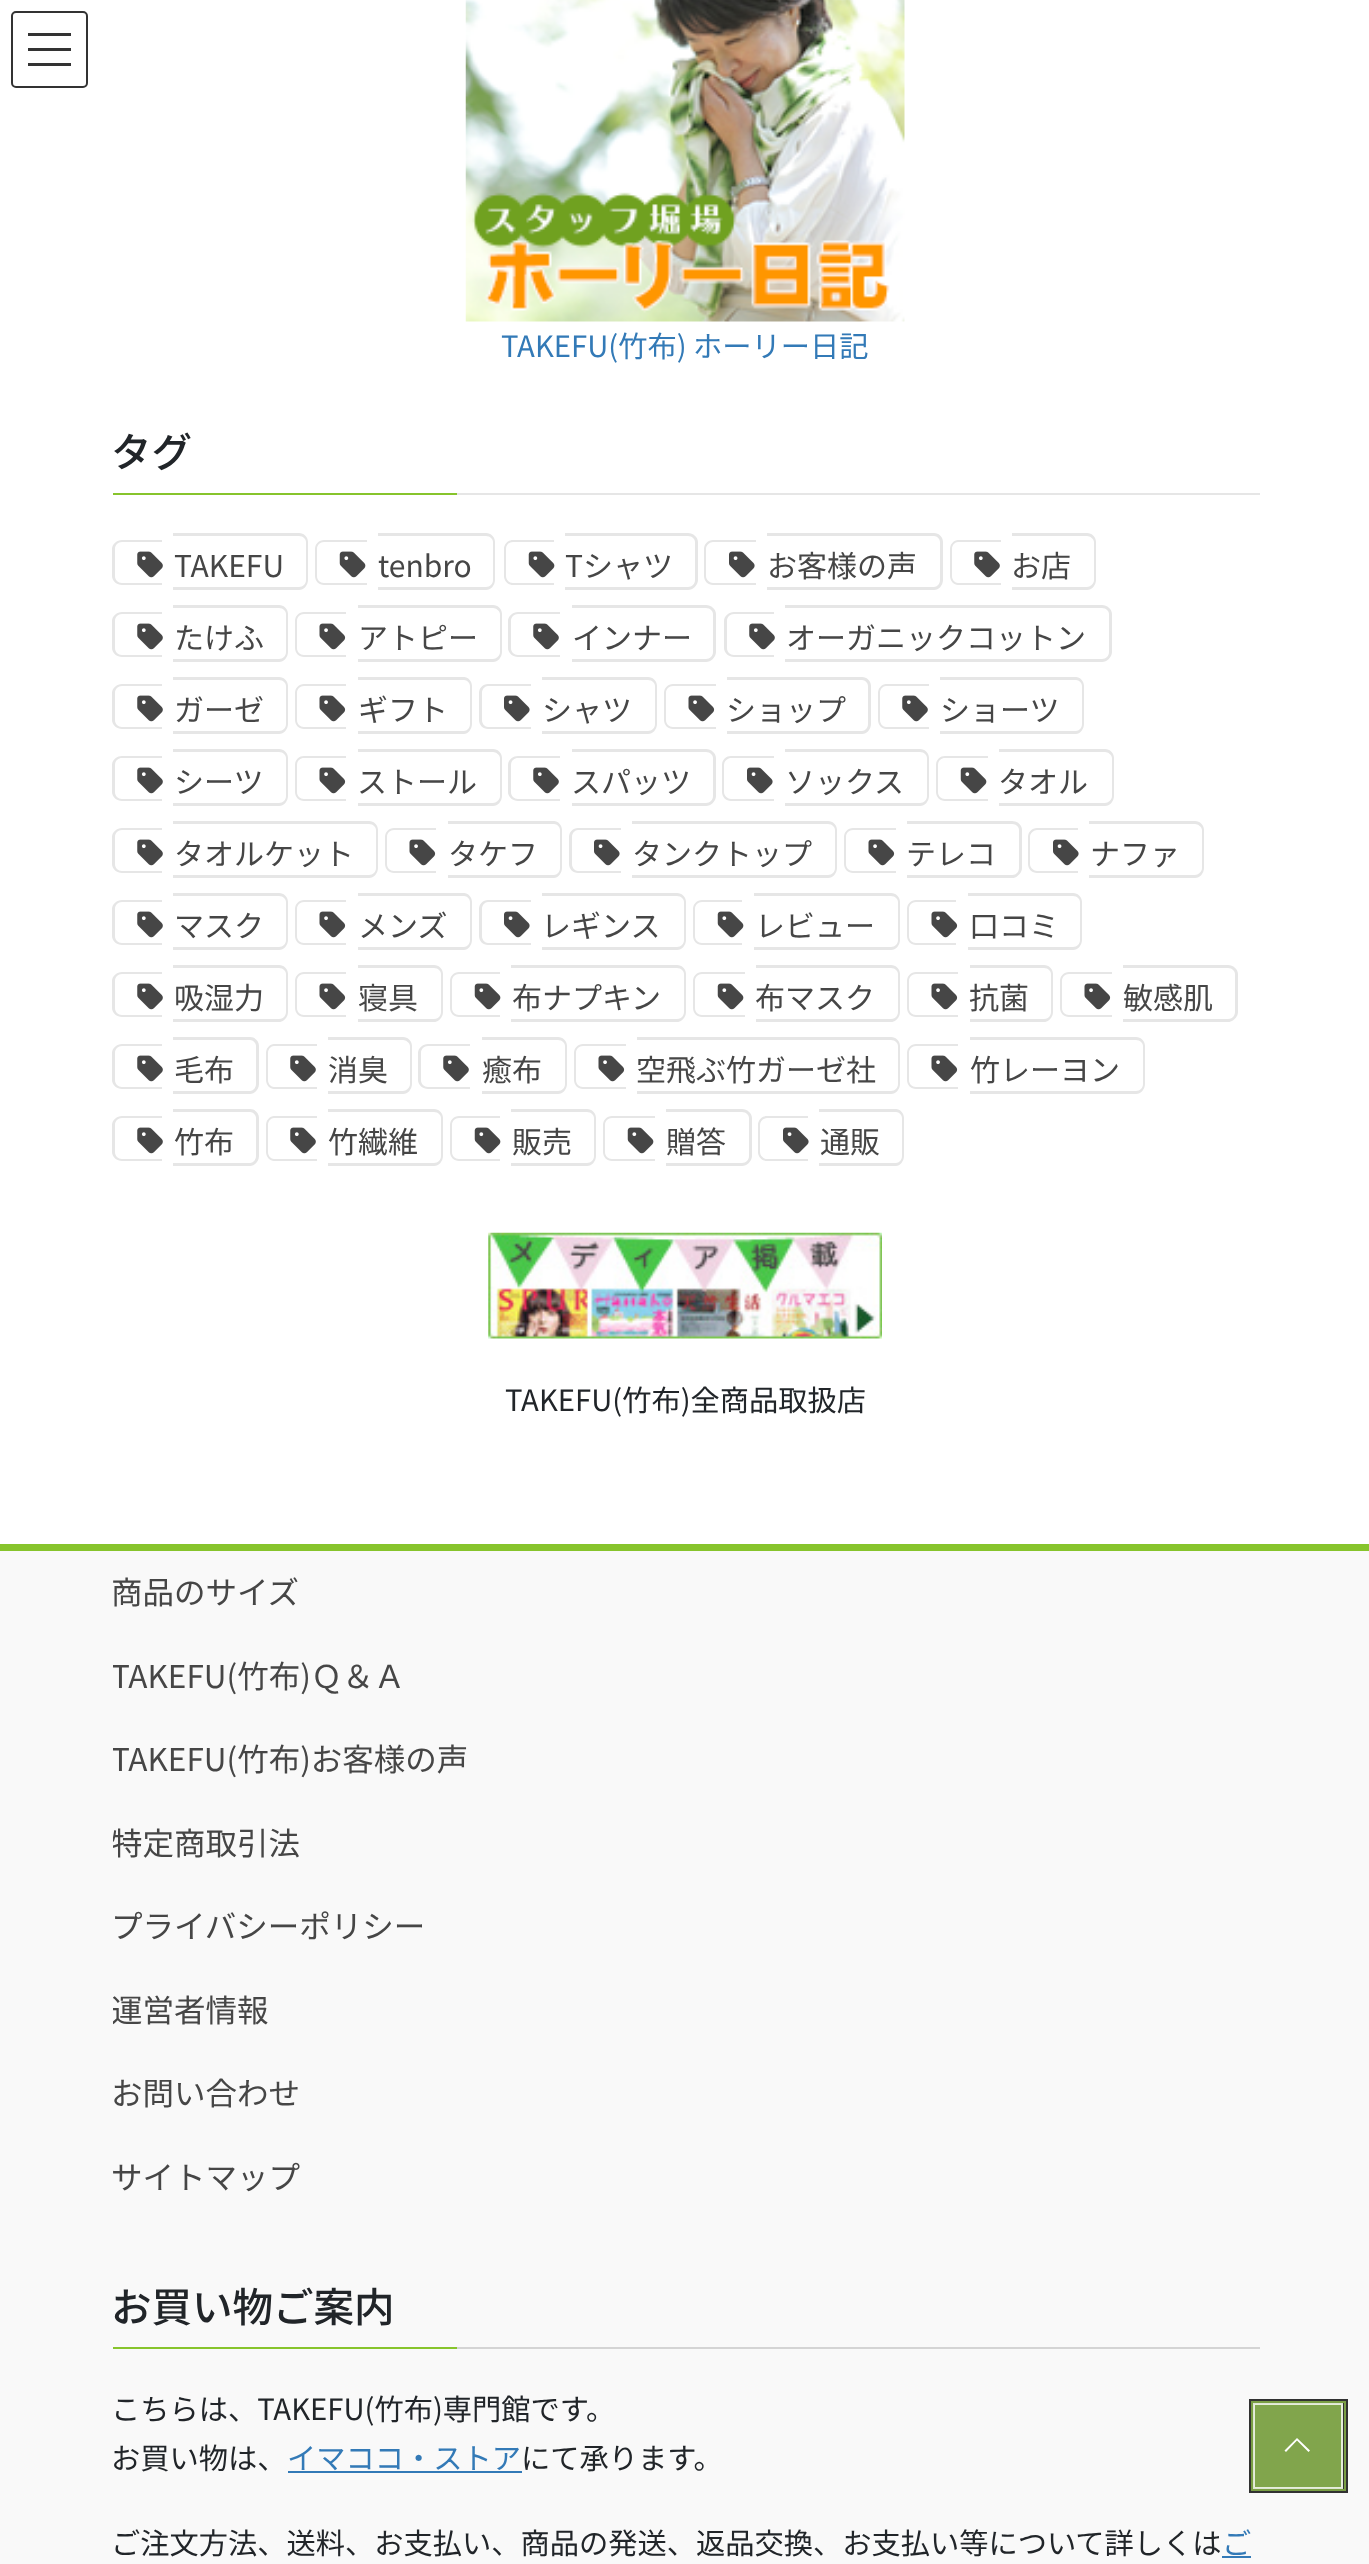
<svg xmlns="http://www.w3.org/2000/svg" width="1369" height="2564">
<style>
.a{font:29.25px Noto Sans JP;fill:#337ab7}
.b{font:500 40.5px Noto Sans JP;fill:#212529}
.c{font:30px Noto Sans JP;fill:#464646}
.d{font:29.25px Noto Sans JP;fill:#212529}
.e{font:31.5px Noto Sans JP;fill:#464646}
</style>
<defs>
<clipPath id="clip1"><path d="M113 1634h1147v83H113z"/></clipPath>
<clipPath id="clip2"><path d="M113 1717h1147v83H113z"/></clipPath>
<clipPath id="clip3"><path d="M113 1800h1147v83H113z"/></clipPath>
<clipPath id="clip4"><path d="M113 1969h1147v83H113z"/></clipPath>
</defs>
<rect width="100%" height="100%" fill="#fff"/>
<path fill="#333" d="M28 33h43v3H28z"/>
<path fill="#333" d="M28 48h43v3H28z"/>
<path fill="#333" d="M28 63h43v3H28z"/>
<rect fill="none" stroke="#333" stroke-width="2" x="12" y="12" width="75" height="75" rx="4"/>
<image href="1.png" x="465" y="0" width="440" height="322"/>
<path fill="#e6e6e6" d="M457 493h803v2H457z"/>
<path fill="#87c42c" d="M113 493h344v2H113z"/>
<path fill="#e6e6e6" fill-rule="evenodd" d="M122 540h40v45h-40c-5 0-10-4-10-9v-27c0-5 5-9 10-9zm0 2h40v41h-40c-4 0-7-3-7-7v-27c0-4 3-7 7-7z"/>
<image href="2.png" x="137" y="551" width="26" height="27"/>
<path fill="#e6e6e6" fill-rule="evenodd" d="M173 533h126c5 0 9 4 9 9v38c0 5-4 10-9 10h-126zm0 3h126c4 0 7 3 7 6v38c0 4-3 7-7 7h-126z"/>
<path fill="#e6e6e6" fill-rule="evenodd" d="M324 540h43v45h-43c-5 0-9-4-9-9v-27c0-5 4-9 9-9zm0 2h43v41h-43c-4 0-7-3-7-7v-27c0-4 3-7 7-7z"/>
<image href="3.png" x="339" y="551" width="27" height="27"/>
<path fill="#e6e6e6" fill-rule="evenodd" d="M378 533h108c5 0 9 4 9 9v38c0 5-4 10-9 10h-108zm0 3h108c4 0 7 3 7 6v38c0 4-3 7-7 7h-108z"/>
<path fill="#e6e6e6" fill-rule="evenodd" d="M513 540h41v45h-41c-5 0-9-4-9-9v-27c0-5 4-9 9-9zm0 2h41v41h-41c-4 0-7-3-7-7v-27c0-4 3-7 7-7z"/>
<image href="3.png" x="528" y="551" width="27" height="27"/>
<path fill="#e6e6e6" fill-rule="evenodd" d="M565 533h123c5 0 10 4 10 9v38c0 5-5 10-10 10h-123zm0 3h123c4 0 7 3 7 6v38c0 4-3 7-7 7h-123z"/>
<path fill="#e6e6e6" fill-rule="evenodd" d="M713 540h43v45h-43c-5 0-9-4-9-9v-27c0-5 4-9 9-9zm0 2h43v41h-43c-3 0-7-3-7-7v-27c0-4 4-7 7-7z"/>
<image href="4.png" x="729" y="551" width="26" height="27"/>
<path fill="#e6e6e6" fill-rule="evenodd" d="M767 533h167c5 0 9 4 9 9v38c0 5-4 10-9 10h-167zm0 3h167c3 0 6 3 6 6v38c0 4-3 7-6 7h-167z"/>
<path fill="#e6e6e6" fill-rule="evenodd" d="M958 540h43v45h-43c-4 0-8-4-8-9v-27c0-5 4-9 8-9zm0 2h43v41h-43c-3 0-6-3-6-7v-27c0-4 3-7 6-7z"/>
<image href="2.png" x="974" y="551" width="26" height="27"/>
<path fill="#e6e6e6" fill-rule="evenodd" d="M1012 533h75c5 0 9 4 9 9v38c0 5-4 10-9 10h-75zm0 3h75c3 0 7 3 7 6v38c0 4-4 7-7 7h-75z"/>
<path fill="#e6e6e6" fill-rule="evenodd" d="M122 612h40v45h-40c-5 0-10-4-10-9v-27c0-5 5-9 10-9zm0 2h40v41h-40c-4 0-7-3-7-7v-27c0-4 3-7 7-7z"/>
<image href="2.png" x="137" y="623" width="26" height="27"/>
<path fill="#e6e6e6" fill-rule="evenodd" d="M173 605h106c5 0 9 4 9 9v38c0 5-4 10-9 10h-106zm0 3h106c4 0 7 3 7 6v38c0 4-3 7-7 7h-106z"/>
<path fill="#e6e6e6" fill-rule="evenodd" d="M304 612h42v45h-42c-5 0-9-4-9-9v-27c0-5 4-9 9-9zm0 2h42v41h-42c-4 0-7-3-7-7v-27c0-4 3-7 7-7z"/>
<image href="5.png" x="319" y="623" width="27" height="27"/>
<path fill="#e6e6e6" fill-rule="evenodd" d="M358 605h135c5 0 9 4 9 9v38c0 5-4 10-9 10h-135zm0 3h135c3 0 7 3 7 6v38c0 4-4 7-7 7h-135z"/>
<path fill="#e6e6e6" fill-rule="evenodd" d="M518 612h42v45h-42c-5 0-10-4-10-9v-27c0-5 5-9 10-9zm0 2h42v41h-42c-4 0-7-3-7-7v-27c0-4 3-7 7-7z"/>
<image href="2.png" x="533" y="623" width="26" height="27"/>
<path fill="#e6e6e6" fill-rule="evenodd" d="M572 605h134c5 0 10 4 10 9v38c0 5-5 10-10 10h-134zm0 3h134c4 0 7 3 7 6v38c0 4-3 7-7 7h-134z"/>
<path fill="#e6e6e6" fill-rule="evenodd" d="M734 612h40v45h-40c-5 0-10-4-10-9v-27c0-5 5-9 10-9zm0 2h40v41h-40c-4 0-7-3-7-7v-27c0-4 3-7 7-7z"/>
<image href="2.png" x="749" y="623" width="26" height="27"/>
<path fill="#e6e6e6" fill-rule="evenodd" d="M785 605h317c5 0 10 4 10 9v38c0 5-5 10-10 10h-317zm0 3h317c4 0 7 3 7 6v38c0 4-3 7-7 7h-317z"/>
<path fill="#e6e6e6" fill-rule="evenodd" d="M122 684h40v45h-40c-5 0-10-4-10-9v-27c0-5 5-9 10-9zm0 2h40v41h-40c-4 0-7-3-7-7v-27c0-4 3-7 7-7z"/>
<image href="2.png" x="137" y="695" width="26" height="27"/>
<path fill="#e6e6e6" fill-rule="evenodd" d="M173 677h106c5 0 9 4 9 9v38c0 5-4 10-9 10h-106zm0 3h106c4 0 7 3 7 6v38c0 4-3 7-7 7h-106z"/>
<path fill="#e6e6e6" fill-rule="evenodd" d="M304 684h42v45h-42c-5 0-9-4-9-9v-27c0-5 4-9 9-9zm0 2h42v41h-42c-4 0-7-3-7-7v-27c0-4 3-7 7-7z"/>
<image href="5.png" x="319" y="695" width="27" height="27"/>
<path fill="#e6e6e6" fill-rule="evenodd" d="M358 677h106c4 0 8 4 8 9v38c0 5-4 10-8 10h-106zm0 3h106c3 0 6 3 6 6v38c0 4-3 7-6 7h-106z"/>
<path fill="#e6e6e6" fill-rule="evenodd" d="M488 684h43v45h-43c-5 0-9-4-9-9v-27c0-5 4-9 9-9zm0 2h43v41h-43c-3 0-6-3-6-7v-27c0-4 3-7 6-7z"/>
<image href="4.png" x="504" y="695" width="26" height="27"/>
<path fill="#e6e6e6" fill-rule="evenodd" d="M542 677h106c5 0 9 4 9 9v38c0 5-4 10-9 10h-106zm0 3h106c4 0 7 3 7 6v38c0 4-3 7-7 7h-106z"/>
<path fill="#e6e6e6" fill-rule="evenodd" d="M673 684h43v45h-43c-5 0-9-4-9-9v-27c0-5 4-9 9-9zm0 2h43v41h-43c-4 0-7-3-7-7v-27c0-4 3-7 7-7z"/>
<image href="5.png" x="688" y="695" width="27" height="27"/>
<path fill="#e6e6e6" fill-rule="evenodd" d="M727 677h135c5 0 9 4 9 9v38c0 5-4 10-9 10h-135zm0 3h135c3 0 6 3 6 6v38c0 4-3 7-6 7h-135z"/>
<path fill="#e6e6e6" fill-rule="evenodd" d="M886 684h43v45h-43c-4 0-8-4-8-9v-27c0-5 4-9 8-9zm0 2h43v41h-43c-3 0-6-3-6-7v-27c0-4 3-7 6-7z"/>
<image href="2.png" x="902" y="695" width="26" height="27"/>
<path fill="#e6e6e6" fill-rule="evenodd" d="M940 677h136c4 0 8 4 8 9v38c0 5-4 10-8 10h-136zm0 3h136c3 0 6 3 6 6v38c0 4-3 7-6 7h-136z"/>
<path fill="#e6e6e6" fill-rule="evenodd" d="M122 756h40v45h-40c-5 0-10-4-10-9v-27c0-5 5-9 10-9zm0 2h40v41h-40c-4 0-7-3-7-7v-27c0-4 3-7 7-7z"/>
<image href="2.png" x="137" y="767" width="26" height="27"/>
<path fill="#e6e6e6" fill-rule="evenodd" d="M173 749h106c5 0 9 4 9 9v38c0 5-4 10-9 10h-106zm0 3h106c4 0 7 3 7 6v38c0 4-3 7-7 7h-106z"/>
<path fill="#e6e6e6" fill-rule="evenodd" d="M304 756h42v45h-42c-5 0-9-4-9-9v-27c0-5 4-9 9-9zm0 2h42v41h-42c-4 0-7-3-7-7v-27c0-4 3-7 7-7z"/>
<image href="5.png" x="319" y="767" width="27" height="27"/>
<path fill="#e6e6e6" fill-rule="evenodd" d="M358 749h135c5 0 9 4 9 9v38c0 5-4 10-9 10h-135zm0 3h135c3 0 7 3 7 6v38c0 4-4 7-7 7h-135z"/>
<path fill="#e6e6e6" fill-rule="evenodd" d="M518 756h42v45h-42c-5 0-10-4-10-9v-27c0-5 5-9 10-9zm0 2h42v41h-42c-4 0-7-3-7-7v-27c0-4 3-7 7-7z"/>
<image href="2.png" x="533" y="767" width="26" height="27"/>
<path fill="#e6e6e6" fill-rule="evenodd" d="M572 749h134c5 0 10 4 10 9v38c0 5-5 10-10 10h-134zm0 3h134c4 0 7 3 7 6v38c0 4-3 7-7 7h-134z"/>
<path fill="#e6e6e6" fill-rule="evenodd" d="M731 756h43v45h-43c-5 0-9-4-9-9v-27c0-5 4-9 9-9zm0 2h43v41h-43c-3 0-7-3-7-7v-27c0-4 4-7 7-7z"/>
<image href="4.png" x="747" y="767" width="26" height="27"/>
<path fill="#e6e6e6" fill-rule="evenodd" d="M785 749h135c5 0 9 4 9 9v38c0 5-4 10-9 10h-135zm0 3h135c4 0 7 3 7 6v38c0 4-3 7-7 7h-135z"/>
<path fill="#e6e6e6" fill-rule="evenodd" d="M945 756h43v45h-43c-5 0-9-4-9-9v-27c0-5 4-9 9-9zm0 2h43v41h-43c-4 0-7-3-7-7v-27c0-4 3-7 7-7z"/>
<image href="3.png" x="960" y="767" width="27" height="27"/>
<path fill="#e6e6e6" fill-rule="evenodd" d="M999 749h106c5 0 9 4 9 9v38c0 5-4 10-9 10h-106zm0 3h106c3 0 7 3 7 6v38c0 4-4 7-7 7h-106z"/>
<path fill="#e6e6e6" fill-rule="evenodd" d="M122 828h40v45h-40c-5 0-10-4-10-9v-27c0-5 5-9 10-9zm0 2h40v41h-40c-4 0-7-3-7-7v-27c0-4 3-7 7-7z"/>
<image href="2.png" x="137" y="839" width="26" height="27"/>
<path fill="#e6e6e6" fill-rule="evenodd" d="M173 821h196c5 0 9 4 9 9v38c0 5-4 10-9 10h-196zm0 3h196c4 0 7 3 7 6v38c0 4-3 7-7 7h-196z"/>
<path fill="#e6e6e6" fill-rule="evenodd" d="M394 828h42v45h-42c-5 0-9-4-9-9v-27c0-5 4-9 9-9zm0 2h42v41h-42c-4 0-7-3-7-7v-27c0-4 3-7 7-7z"/>
<image href="5.png" x="409" y="839" width="27" height="27"/>
<path fill="#e6e6e6" fill-rule="evenodd" d="M448 821h106c4 0 8 4 8 9v38c0 5-4 10-8 10h-106zm0 3h106c3 0 6 3 6 6v38c0 4-3 7-6 7h-106z"/>
<path fill="#e6e6e6" fill-rule="evenodd" d="M578 828h43v45h-43c-5 0-9-4-9-9v-27c0-5 4-9 9-9zm0 2h43v41h-43c-3 0-6-3-6-7v-27c0-4 3-7 6-7z"/>
<image href="4.png" x="594" y="839" width="26" height="27"/>
<path fill="#e6e6e6" fill-rule="evenodd" d="M632 821h196c5 0 9 4 9 9v38c0 5-4 10-9 10h-196zm0 3h196c4 0 7 3 7 6v38c0 4-3 7-7 7h-196z"/>
<path fill="#e6e6e6" fill-rule="evenodd" d="M853 828h43v45h-43c-5 0-9-4-9-9v-27c0-5 4-9 9-9zm0 2h43v41h-43c-4 0-7-3-7-7v-27c0-4 3-7 7-7z"/>
<image href="5.png" x="868" y="839" width="27" height="27"/>
<path fill="#e6e6e6" fill-rule="evenodd" d="M907 821h105c5 0 10 4 10 9v38c0 5-5 10-10 10h-105zm0 3h105c4 0 7 3 7 6v38c0 4-3 7-7 7h-105z"/>
<path fill="#e6e6e6" fill-rule="evenodd" d="M1037 828h41v45h-41c-5 0-9-4-9-9v-27c0-5 4-9 9-9zm0 2h41v41h-41c-3 0-7-3-7-7v-27c0-4 4-7 7-7z"/>
<image href="4.png" x="1053" y="839" width="26" height="27"/>
<path fill="#e6e6e6" fill-rule="evenodd" d="M1089 821h106c5 0 9 4 9 9v38c0 5-4 10-9 10h-106zm0 3h106c3 0 7 3 7 6v38c0 4-4 7-7 7h-106z"/>
<path fill="#e6e6e6" fill-rule="evenodd" d="M122 900h40v45h-40c-5 0-10-4-10-9v-27c0-5 5-9 10-9zm0 2h40v41h-40c-4 0-7-3-7-7v-27c0-4 3-7 7-7z"/>
<image href="2.png" x="137" y="911" width="26" height="27"/>
<path fill="#e6e6e6" fill-rule="evenodd" d="M173 893h106c5 0 9 4 9 9v38c0 5-4 10-9 10h-106zm0 3h106c4 0 7 3 7 6v38c0 4-3 7-7 7h-106z"/>
<path fill="#e6e6e6" fill-rule="evenodd" d="M304 900h42v45h-42c-5 0-9-4-9-9v-27c0-5 4-9 9-9zm0 2h42v41h-42c-4 0-7-3-7-7v-27c0-4 3-7 7-7z"/>
<image href="5.png" x="319" y="911" width="27" height="27"/>
<path fill="#e6e6e6" fill-rule="evenodd" d="M358 893h106c4 0 8 4 8 9v38c0 5-4 10-8 10h-106zm0 3h106c3 0 6 3 6 6v38c0 4-3 7-6 7h-106z"/>
<path fill="#e6e6e6" fill-rule="evenodd" d="M488 900h43v45h-43c-5 0-9-4-9-9v-27c0-5 4-9 9-9zm0 2h43v41h-43c-3 0-6-3-6-7v-27c0-4 3-7 6-7z"/>
<image href="4.png" x="504" y="911" width="26" height="27"/>
<path fill="#e6e6e6" fill-rule="evenodd" d="M542 893h135c5 0 9 4 9 9v38c0 5-4 10-9 10h-135zm0 3h135c4 0 7 3 7 6v38c0 4-3 7-7 7h-135z"/>
<path fill="#e6e6e6" fill-rule="evenodd" d="M702 900h40v45h-40c-5 0-9-4-9-9v-27c0-5 4-9 9-9zm0 2h40v41h-40c-4 0-7-3-7-7v-27c0-4 3-7 7-7z"/>
<image href="3.png" x="717" y="911" width="27" height="27"/>
<path fill="#e6e6e6" fill-rule="evenodd" d="M754 893h137c5 0 9 4 9 9v38c0 5-4 10-9 10h-137zm0 3h137c4 0 7 3 7 6v38c0 4-3 7-7 7h-137z"/>
<path fill="#e6e6e6" fill-rule="evenodd" d="M916 900h40v45h-40c-5 0-9-4-9-9v-27c0-5 4-9 9-9zm0 2h40v41h-40c-4 0-7-3-7-7v-27c0-4 3-7 7-7z"/>
<image href="5.png" x="931" y="911" width="27" height="27"/>
<path fill="#e6e6e6" fill-rule="evenodd" d="M968 893h105c5 0 9 4 9 9v38c0 5-4 10-9 10h-105zm0 3h105c4 0 7 3 7 6v38c0 4-3 7-7 7h-105z"/>
<path fill="#e6e6e6" fill-rule="evenodd" d="M122 972h40v45h-40c-5 0-10-4-10-9v-27c0-5 5-9 10-9zm0 2h40v41h-40c-4 0-7-3-7-7v-27c0-4 3-7 7-7z"/>
<image href="2.png" x="137" y="983" width="26" height="27"/>
<path fill="#e6e6e6" fill-rule="evenodd" d="M173 965h106c5 0 9 4 9 9v38c0 5-4 10-9 10h-106zm0 3h106c4 0 7 3 7 6v38c0 4-3 7-7 7h-106z"/>
<path fill="#e6e6e6" fill-rule="evenodd" d="M304 972h42v45h-42c-5 0-9-4-9-9v-27c0-5 4-9 9-9zm0 2h42v41h-42c-4 0-7-3-7-7v-27c0-4 3-7 7-7z"/>
<image href="5.png" x="319" y="983" width="27" height="27"/>
<path fill="#e6e6e6" fill-rule="evenodd" d="M358 965h76c5 0 9 4 9 9v38c0 5-4 10-9 10h-76zm0 3h76c4 0 7 3 7 6v38c0 4-3 7-7 7h-76z"/>
<path fill="#e6e6e6" fill-rule="evenodd" d="M459 972h41v45h-41c-5 0-9-4-9-9v-27c0-5 4-9 9-9zm0 2h41v41h-41c-4 0-7-3-7-7v-27c0-4 3-7 7-7z"/>
<image href="3.png" x="474" y="983" width="27" height="27"/>
<path fill="#e6e6e6" fill-rule="evenodd" d="M511 965h166c5 0 9 4 9 9v38c0 5-4 10-9 10h-166zm0 3h166c4 0 7 3 7 6v38c0 4-3 7-7 7h-166z"/>
<path fill="#e6e6e6" fill-rule="evenodd" d="M702 972h43v45h-43c-5 0-9-4-9-9v-27c0-5 4-9 9-9zm0 2h43v41h-43c-4 0-7-3-7-7v-27c0-4 3-7 7-7z"/>
<image href="3.png" x="717" y="983" width="27" height="27"/>
<path fill="#e6e6e6" fill-rule="evenodd" d="M756 965h135c5 0 9 4 9 9v38c0 5-4 10-9 10h-135zm0 3h135c4 0 7 3 7 6v38c0 4-3 7-7 7h-135z"/>
<path fill="#e6e6e6" fill-rule="evenodd" d="M916 972h42v45h-42c-5 0-9-4-9-9v-27c0-5 4-9 9-9zm0 2h42v41h-42c-4 0-7-3-7-7v-27c0-4 3-7 7-7z"/>
<image href="5.png" x="931" y="983" width="27" height="27"/>
<path fill="#e6e6e6" fill-rule="evenodd" d="M970 965h74c5 0 9 4 9 9v38c0 5-4 10-9 10h-74zm0 3h74c4 0 7 3 7 6v38c0 4-3 7-7 7h-74z"/>
<path fill="#e6e6e6" fill-rule="evenodd" d="M1069 972h43v45h-43c-5 0-9-4-9-9v-27c0-5 4-9 9-9zm0 2h43v41h-43c-4 0-7-3-7-7v-27c0-4 3-7 7-7z"/>
<image href="5.png" x="1084" y="983" width="27" height="27"/>
<path fill="#e6e6e6" fill-rule="evenodd" d="M1123 965h105c5 0 10 4 10 9v38c0 5-5 10-10 10h-105zm0 3h105c4 0 7 3 7 6v38c0 4-3 7-7 7h-105z"/>
<path fill="#e6e6e6" fill-rule="evenodd" d="M122 1044h40v45h-40c-5 0-10-4-10-9v-27c0-5 5-9 10-9zm0 2h40v41h-40c-4 0-7-3-7-7v-27c0-4 3-7 7-7z"/>
<image href="2.png" x="137" y="1055" width="26" height="27"/>
<path fill="#e6e6e6" fill-rule="evenodd" d="M173 1037h77c5 0 9 4 9 9v38c0 5-4 10-9 10h-77zm0 3h77c3 0 6 3 6 6v38c0 4-3 7-6 7h-77z"/>
<path fill="#e6e6e6" fill-rule="evenodd" d="M274 1044h43v45h-43c-4 0-8-4-8-9v-27c0-5 4-9 8-9zm0 2h43v41h-43c-3 0-6-3-6-7v-27c0-4 3-7 6-7z"/>
<image href="2.png" x="290" y="1055" width="26" height="27"/>
<path fill="#e6e6e6" fill-rule="evenodd" d="M328 1037h75c5 0 9 4 9 9v38c0 5-4 10-9 10h-75zm0 3h75c3 0 7 3 7 6v38c0 4-4 7-7 7h-75z"/>
<path fill="#e6e6e6" fill-rule="evenodd" d="M428 1044h42v45h-42c-5 0-10-4-10-9v-27c0-5 5-9 10-9zm0 2h42v41h-42c-4 0-7-3-7-7v-27c0-4 3-7 7-7z"/>
<image href="2.png" x="443" y="1055" width="26" height="27"/>
<path fill="#e6e6e6" fill-rule="evenodd" d="M482 1037h76c5 0 9 4 9 9v38c0 5-4 10-9 10h-76zm0 3h76c4 0 7 3 7 6v38c0 4-3 7-7 7h-76z"/>
<path fill="#e6e6e6" fill-rule="evenodd" d="M583 1044h43v45h-43c-5 0-9-4-9-9v-27c0-5 4-9 9-9zm0 2h43v41h-43c-4 0-7-3-7-7v-27c0-4 3-7 7-7z"/>
<image href="5.png" x="598" y="1055" width="27" height="27"/>
<path fill="#e6e6e6" fill-rule="evenodd" d="M637 1037h254c5 0 9 4 9 9v38c0 5-4 10-9 10h-254zm0 3h254c4 0 7 3 7 6v38c0 4-3 7-7 7h-254z"/>
<path fill="#e6e6e6" fill-rule="evenodd" d="M916 1044h42v45h-42c-5 0-9-4-9-9v-27c0-5 4-9 9-9zm0 2h42v41h-42c-4 0-7-3-7-7v-27c0-4 3-7 7-7z"/>
<image href="5.png" x="931" y="1055" width="27" height="27"/>
<path fill="#e6e6e6" fill-rule="evenodd" d="M970 1037h166c5 0 9 4 9 9v38c0 5-4 10-9 10h-166zm0 3h166c4 0 7 3 7 6v38c0 4-3 7-7 7h-166z"/>
<path fill="#e6e6e6" fill-rule="evenodd" d="M122 1116h40v45h-40c-5 0-10-4-10-9v-27c0-5 5-9 10-9zm0 2h40v41h-40c-4 0-7-3-7-7v-27c0-4 3-7 7-7z"/>
<image href="2.png" x="137" y="1127" width="26" height="27"/>
<path fill="#e6e6e6" fill-rule="evenodd" d="M173 1109h77c5 0 9 4 9 9v38c0 5-4 10-9 10h-77zm0 3h77c3 0 6 3 6 6v38c0 4-3 7-6 7h-77z"/>
<path fill="#e6e6e6" fill-rule="evenodd" d="M274 1116h43v45h-43c-4 0-8-4-8-9v-27c0-5 4-9 8-9zm0 2h43v41h-43c-3 0-6-3-6-7v-27c0-4 3-7 6-7z"/>
<image href="2.png" x="290" y="1127" width="26" height="27"/>
<path fill="#e6e6e6" fill-rule="evenodd" d="M328 1109h106c5 0 9 4 9 9v38c0 5-4 10-9 10h-106zm0 3h106c4 0 7 3 7 6v38c0 4-3 7-7 7h-106z"/>
<path fill="#e6e6e6" fill-rule="evenodd" d="M459 1116h41v45h-41c-5 0-9-4-9-9v-27c0-5 4-9 9-9zm0 2h41v41h-41c-4 0-7-3-7-7v-27c0-4 3-7 7-7z"/>
<image href="3.png" x="474" y="1127" width="27" height="27"/>
<path fill="#e6e6e6" fill-rule="evenodd" d="M511 1109h76c5 0 9 4 9 9v38c0 5-4 10-9 10h-76zm0 3h76c4 0 7 3 7 6v38c0 4-3 7-7 7h-76z"/>
<path fill="#e6e6e6" fill-rule="evenodd" d="M612 1116h43v45h-43c-5 0-9-4-9-9v-27c0-5 4-9 9-9zm0 2h43v41h-43c-4 0-7-3-7-7v-27c0-4 3-7 7-7z"/>
<image href="3.png" x="627" y="1127" width="27" height="27"/>
<path fill="#e6e6e6" fill-rule="evenodd" d="M666 1109h76c5 0 10 4 10 9v38c0 5-5 10-10 10h-76zm0 3h76c4 0 7 3 7 6v38c0 4-3 7-7 7h-76z"/>
<path fill="#e6e6e6" fill-rule="evenodd" d="M767 1116h41v45h-41c-5 0-9-4-9-9v-27c0-5 4-9 9-9zm0 2h41v41h-41c-3 0-7-3-7-7v-27c0-4 4-7 7-7z"/>
<image href="4.png" x="783" y="1127" width="26" height="27"/>
<path fill="#e6e6e6" fill-rule="evenodd" d="M819 1109h77c4 0 8 4 8 9v38c0 5-4 10-8 10h-77zm0 3h77c3 0 6 3 6 6v38c0 4-3 7-6 7h-77z"/>
<image href="6.png" x="488" y="1232" width="394" height="107"/>
<path fill="#f9f9f9" d="M0 1551h1369v1013H0z"/>
<path fill="#87c42c" d="M0 1544h1369v7H0z"/>
<path fill="#d4d4d4" d="M457 2347h803v2H457z"/>
<path fill="#87c42c" d="M113 2347h344v2H113z"/>
<path fill="#337ab7" d="M288 2471h234v2H288z"/>
<path fill="#337ab7" d="M1222 2556h29v2H1222z"/>
<path fill="none" stroke="#323232" stroke-width="5" d="M1251.5 2401.5h94v89H1251.5z"/>
<path fill="#639020cc" d="M1253 2403h90v86H1253z"/>
<path fill="#fff" d="M1310 2450.5l-1.5 1.5l-11.5-11.5l-11 11.5l-1.5-1.5l12.5-12.5z"/>
<path fill="none" stroke="#ffffffcc" stroke-width="2" d="M1254 2404h88v84H1254z"/>
<path fill="none" stroke="#7a9e44" stroke-width="2" d="M1252 2402h93v88H1252z"/>
<text class="a" x="501" y="357">TAKEFU(竹布) ホーリー日記</text>
<text class="b" x="111" y="467">タグ</text>
<text class="c" x="174" y="577">TAKEFU</text>
<text class="c" x="378" y="577">tenbro</text>
<text class="c" x="565" y="577">Tシャツ</text>
<text class="c" x="767" y="577">お客様の声</text>
<text class="c" x="1011" y="577">お店</text>
<text class="c" x="174" y="649">たけふ</text>
<text class="c" x="358" y="649">アトピー</text>
<text class="c" x="572" y="649">インナー</text>
<text class="c" x="786" y="649">オーガニックコットン</text>
<text class="c" x="174" y="721">ガーゼ</text>
<text class="c" x="358" y="721">ギフト</text>
<text class="c" x="542" y="721">シャツ</text>
<text class="c" x="726" y="721">ショップ</text>
<text class="c" x="940" y="721">ショーツ</text>
<text class="c" x="174" y="793">シーツ</text>
<text class="c" x="357" y="793">ストール</text>
<text class="c" x="571" y="793">スパッツ</text>
<text class="c" x="785" y="793">ソックス</text>
<text class="c" x="998" y="793">タオル</text>
<text class="c" x="174" y="865">タオルケット</text>
<text class="c" x="448" y="865">タケフ</text>
<text class="c" x="632" y="865">タンクトップ</text>
<text class="c" x="906" y="865">テレコ</text>
<text class="c" x="1090" y="865">ナファ</text>
<text class="c" x="174" y="937">マスク</text>
<text class="c" x="358" y="937">メンズ</text>
<text class="c" x="541" y="937">レギンス</text>
<text class="c" x="755" y="937">レビュー</text>
<text class="c" x="969" y="937">口コミ</text>
<text class="c" x="174" y="1009">吸湿力</text>
<text class="c" x="358" y="1009">寝具</text>
<text class="c" x="512" y="1009">布ナプキン</text>
<text class="c" x="755" y="1009">布マスク</text>
<text class="c" x="969" y="1009">抗菌</text>
<text class="c" x="1123" y="1009">敏感肌</text>
<text class="c" x="174" y="1081">毛布</text>
<text class="c" x="328" y="1081">消臭</text>
<text class="c" x="482" y="1081">癒布</text>
<text class="c" x="636" y="1081">空飛ぶ竹ガーゼ社</text>
<text class="c" x="970" y="1081">竹レーヨン</text>
<text class="c" x="174" y="1153">竹布</text>
<text class="c" x="328" y="1153">竹繊維</text>
<text class="c" x="512" y="1153">販売</text>
<text class="c" x="666" y="1153">贈答</text>
<text class="c" x="820" y="1153">通販</text>
<text class="d" x="505" y="1411">TAKEFU(竹布)全商品取扱店</text>
<text class="e" x="111" y="1604">商品のサイズ</text>
<g clip-path="url(#clip1)">
<text class="e" x="111" y="1688">TAKEFU(竹布)Ｑ＆Ａ</text>
</g>
<g clip-path="url(#clip2)">
<text class="e" x="111" y="1771">TAKEFU(竹布)お客様の声</text>
</g>
<g clip-path="url(#clip3)">
<text class="e" x="111" y="1855">特定商取引法</text>
</g>
<text class="e" x="111" y="1938">プライバシーポリシー</text>
<g clip-path="url(#clip4)">
<text class="e" x="111" y="2022">運営者情報</text>
</g>
<text class="e" x="111" y="2105">お問い合わせ</text>
<text class="e" x="111" y="2189">サイトマップ</text>
<text class="b" x="111" y="2322">お買い物ご案内</text>
<text class="d" x="111" y="2420">こちらは、TAKEFU(竹布)専門館です。</text>
<text class="d" x="111" y="2469">お買い物は、</text>
<text class="a" x="287" y="2469">イマココ・ストア</text>
<text class="d" x="521" y="2469">にて承ります。</text>
<text class="d" x="111" y="2554">ご注文方法、送料、お支払い、商品の発送、返品交換、お支払い等について詳しくは</text>
<text class="a" x="1222" y="2554">ご</text>
</svg>
